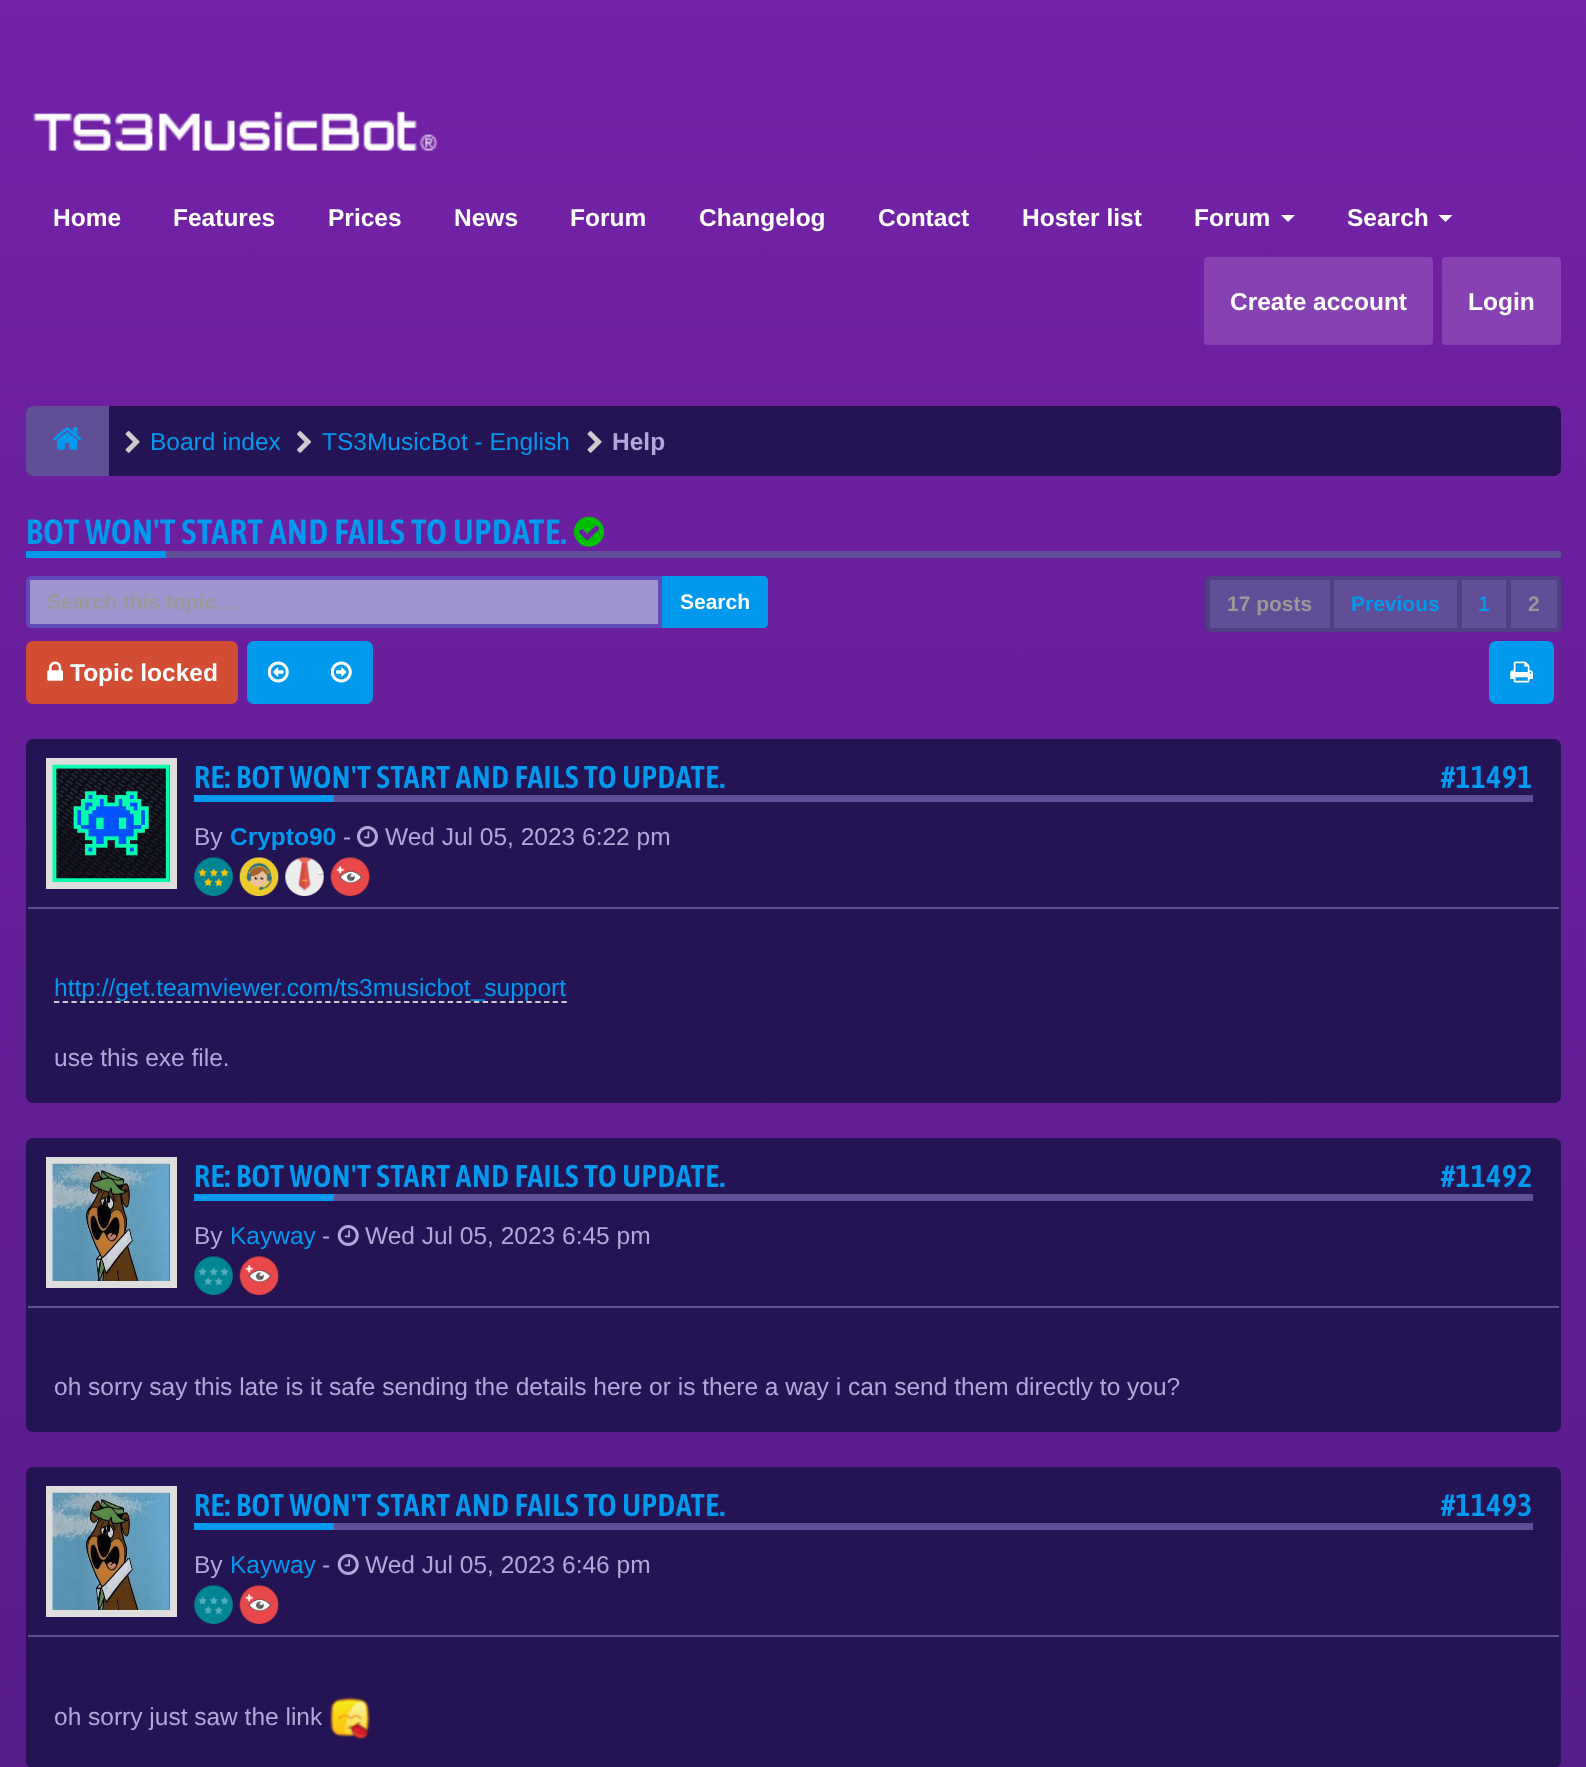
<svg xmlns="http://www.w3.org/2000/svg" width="1586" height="1767">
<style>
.a{font:bold 24.5px Liberation Sans;fill:#fff}
.b{font:24.5px Liberation Sans;fill:#09e}
.c{font:bold 24.5px Liberation Sans;fill:#b2a7d6}
.d{font:600 35px Asap Condensed;letter-spacing:0.7px;fill:#09e}
.e{font:bold 21px Liberation Sans;fill:#999}
.f{font:bold 21px Liberation Sans;fill:#fff}
.g{font:bold 21px Liberation Sans;fill:#09e}
.h{font:600 31.5px Asap Condensed;letter-spacing:0.7px;fill:#09e}
.i{font:24.5px Liberation Sans;fill:#b2a7d6}
.j{font:bold 24.5px Liberation Sans;fill:#09e}
</style>
<defs>
<linearGradient id="g1" gradientUnits="userSpaceOnUse" x1="794" y1="0" x2="794" y2="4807"><stop offset="0" stop-color="#7422a8"/><stop offset="1" stop-color="#260f56"/></linearGradient>
</defs>
<rect width="100%" height="100%" fill="#fff"/>
<path fill="url(#g1)" d="M0 0h1586v1767H0z"/>
<image href="1.png" x="33" y="111" width="405" height="40"/>
<path fill="#fff" d="M1281 215h14l-7 7z"/>
<path fill="#fff" d="M1438.5 215h14l-7 7z"/>
<rect fill="#8642b2" x="1204" y="257" width="229" height="88" rx="4"/>
<rect fill="#8642b2" x="1442" y="257" width="119" height="88" rx="4"/>
<rect fill="#241454" x="26" y="406" width="1535" height="70" rx="7"/>
<path fill="#604e96" d="M33 406h76v70h-76c-4 0-7-3-7-7v-56c0-4 3-7 7-7z"/>
<image href="2.png" x="53" y="427" width="29" height="23"/>
<image href="3.png" x="125" y="430" width="15" height="23"/>
<image href="4.png" x="297" y="430" width="15" height="23"/>
<image href="3.png" x="587" y="430" width="15" height="23"/>
<path fill="#604e96" d="M166 551h1395v7H166z"/>
<image href="5.png" x="574" y="516" width="30" height="31"/>
<path fill="#09e" d="M26 551h140v7H26z"/>
<path fill="#9f94ce" stroke="#5f49bb" stroke-width="4" d="M31 578h629v48h-629c-1.5 0-3-1.5-3-3v-42c0-1.5 1.5-3 3-3z"/>
<path fill="#09e" d="M662 576h101c3 0 5 2 5 5v42c0 3-2 5-5 5h-101z"/>
<path fill="#604e96" stroke="#503f82" stroke-width="4" d="M1332 578h127v52H1332z"/>
<path fill="#604e96" stroke="#503f82" stroke-width="4" d="M1211 578h121v52h-121c-1.5 0-3-1.5-3-3v-46c0-1.5 1.5-3 3-3z"/>
<path fill="#604e96" stroke="#503f82" stroke-width="4" d="M1460 578h48v52H1460z"/>
<path fill="#604e96" stroke="#503f82" stroke-width="4" d="M1509 578h47c1.5 0 3 1.5 3 3v46c0 1.5-1.5 3-3 3h-47z"/>
<rect fill="#d24d33" x="26" y="641" width="212" height="63" rx="7"/>
<image href="6.png" x="47" y="661" width="16" height="20"/>
<path fill="#09e" d="M254 641h56v63h-56c-4 0-7-3-7-7v-49c0-4 3-7 7-7z"/>
<image href="7.png" x="267" y="661" width="22" height="22"/>
<path fill="#09e" d="M310 641h56c4 0 7 3 7 7v49c0 4-3 7-7 7h-56z"/>
<image href="8.png" x="330" y="661" width="22" height="22"/>
<rect fill="#09e" x="1489" y="641" width="65" height="63" rx="7"/>
<image href="9.png" x="1510" y="661" width="23" height="22"/>
<rect fill="#241454" x="26" y="739" width="1535" height="364" rx="7"/>
<path fill="#604e96" d="M28 907h1531v2H28z"/>
<path fill="none" stroke="#dedede" stroke-width="7" d="M49.5 761.5h124v124H49.5z"/>
<image href="10.png" x="52" y="764" width="118" height="118"/>
<path fill="#604e96" d="M334 795h1199v7H334z"/>
<path fill="#09e" d="M194 795h140v7H194z"/>
<image href="11.png" x="357" y="826" width="21" height="21"/>
<image href="12.png" x="194" y="857" width="39" height="39"/>
<image href="13.png" x="239" y="857" width="40" height="39"/>
<image href="14.png" x="285" y="857" width="39" height="39"/>
<image href="15.png" x="330" y="857" width="40" height="39"/>
<path fill="none" stroke="#ccc" stroke-width="1.8" stroke-dasharray="5.25 3.5" d="M54 1002h513"/>
<rect fill="#241454" x="26" y="1138" width="1535" height="294" rx="7"/>
<path fill="#604e96" d="M28 1306h1531v2H28z"/>
<path fill="none" stroke="#dedede" stroke-width="7" d="M49.5 1160.5h124v124H49.5z"/>
<image href="16.png" x="52" y="1163" width="118" height="118"/>
<path fill="#604e96" d="M334 1194h1199v7H334z"/>
<path fill="#09e" d="M194 1194h140v7H194z"/>
<image href="17.png" x="337" y="1225" width="22" height="21"/>
<image href="18.png" x="194" y="1256" width="39" height="39"/>
<image href="15.png" x="239" y="1256" width="40" height="39"/>
<rect fill="#241454" x="26" y="1467" width="1535" height="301" rx="7"/>
<path fill="#604e96" d="M28 1635h1531v2H28z"/>
<path fill="none" stroke="#dedede" stroke-width="7" d="M49.5 1489.5h124v124H49.5z"/>
<image href="16.png" x="52" y="1492" width="118" height="118"/>
<path fill="#604e96" d="M334 1523h1199v7H334z"/>
<path fill="#09e" d="M194 1523h140v7H194z"/>
<image href="17.png" x="337" y="1554" width="22" height="21"/>
<image href="18.png" x="194" y="1585" width="39" height="39"/>
<image href="15.png" x="239" y="1585" width="40" height="39"/>
<image href="19.png" x="330" y="1697" width="40" height="43"/>
<text class="a" x="53" y="226">Home</text>
<text class="a" x="173" y="226">Features</text>
<text class="a" x="328" y="226">Prices</text>
<text class="a" x="454" y="226">News</text>
<text class="a" x="570" y="226">Forum</text>
<text class="a" x="699" y="226">Changelog</text>
<text class="a" x="878" y="226">Contact</text>
<text class="a" x="1022" y="226">Hoster list</text>
<text class="a" x="1194" y="226">Forum</text>
<text class="a" x="1347" y="226">Search</text>
<text class="a" x="1230" y="310">Create account</text>
<text class="a" x="1468" y="310">Login</text>
<text class="b" x="150" y="450">Board index</text>
<text class="b" x="322" y="450">TS3MusicBot - English</text>
<text class="c" x="612" y="450">Help</text>
<text class="d" x="26" y="544">BOT WON'T START AND FAILS TO UPDATE.</text>
<text class="e" x="47" y="609">Search this topic…</text>
<text class="f" x="680" y="609">Search</text>
<text class="e" x="1227" y="611">17 posts</text>
<text class="g" x="1351" y="611">Previous</text>
<text class="g" x="1478" y="611">1</text>
<text class="e" x="1528" y="611">2</text>
<text class="a" x="70" y="681">Topic locked</text>
<text class="h" x="194" y="788">RE: BOT WON'T START AND FAILS TO UPDATE.</text>
<text class="h" x="1441" y="788">#11491</text>
<text class="i" x="194" y="845">By</text>
<text class="j" x="230" y="845">Crypto90</text>
<text class="i" x="343" y="845">-</text>
<text class="i" x="385" y="845">Wed Jul 05, 2023 6:22 pm</text>
<text class="b" x="54" y="996">http://get.teamviewer.com/ts3musicbot_support</text>
<text class="i" x="54" y="1066">use this exe file.</text>
<text class="h" x="194" y="1187">RE: BOT WON'T START AND FAILS TO UPDATE.</text>
<text class="h" x="1441" y="1187">#11492</text>
<text class="i" x="194" y="1244">By</text>
<text class="b" x="230" y="1244">Kayway</text>
<text class="i" x="322" y="1244">-</text>
<text class="i" x="365" y="1244">Wed Jul 05, 2023 6:45 pm</text>
<text class="i" x="54" y="1395">oh sorry say this late is it safe sending the details here or is there a way i can send them directly to you?</text>
<text class="h" x="194" y="1516">RE: BOT WON'T START AND FAILS TO UPDATE.</text>
<text class="h" x="1441" y="1516">#11493</text>
<text class="i" x="194" y="1573">By</text>
<text class="b" x="230" y="1573">Kayway</text>
<text class="i" x="322" y="1573">-</text>
<text class="i" x="365" y="1573">Wed Jul 05, 2023 6:46 pm</text>
<text class="i" x="54" y="1725">oh sorry just saw the link</text>
</svg>
